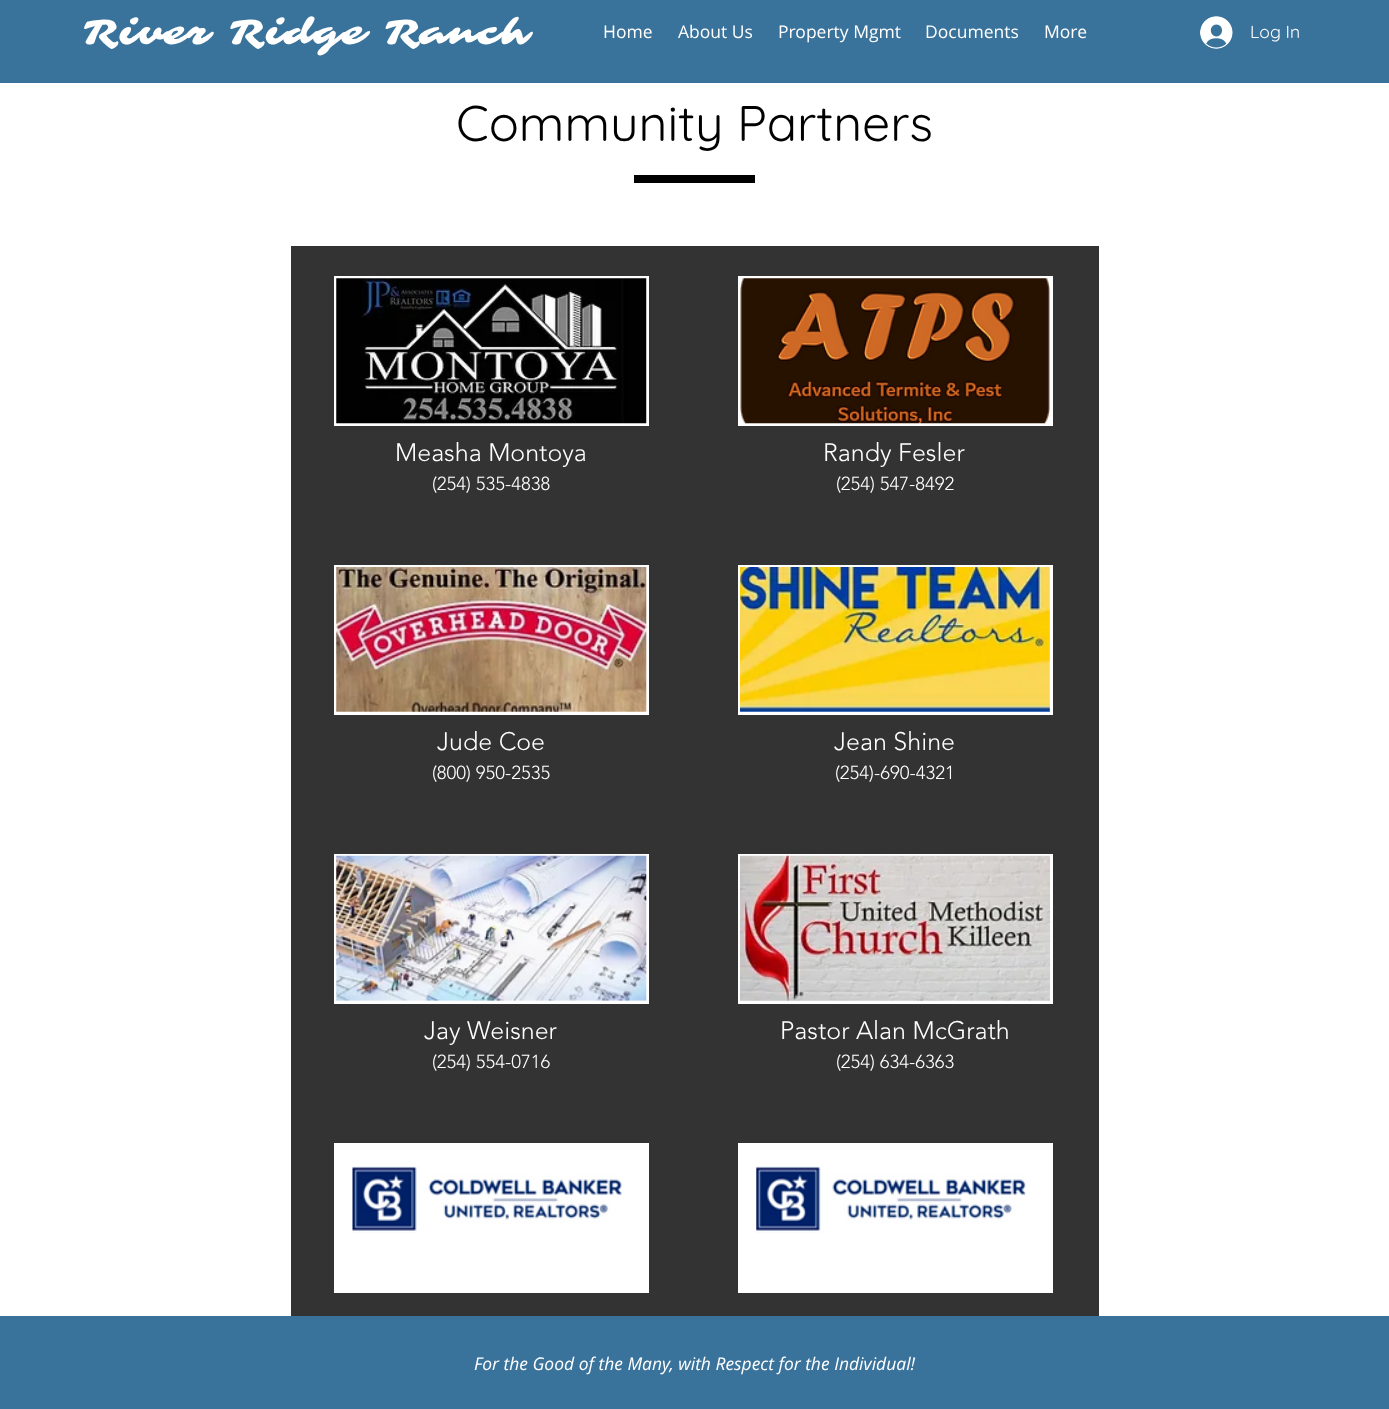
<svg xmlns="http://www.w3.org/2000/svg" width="1389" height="1409">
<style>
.a{font:36.25px Sarina;letter-spacing:1.8px;fill:#fff}
.b{font:17.5px Open Sans;fill:#fff}
.c{font:17.5px Quicksand;fill:#fff}
.d{font:50px Quicksand;fill:#000}
.e{font:300 25px 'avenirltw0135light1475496';fill:#fff}
.f{font:300 18.75px 'avenirltw0135light1475496';fill:#fff}
.g{font:italic 17.5px Open Sans;fill:#fff}
</style>
<rect width="100%" height="100%" fill="#fff"/>
<path fill="#39729b" d="M0 0h1389v83H0z"/>
<image href="1.png" x="1200" y="16" width="33" height="33"/>
<path fill="#000" d="M634 175h121v8H634z"/>
<path fill="#333" d="M291 246h404v1070H291z"/>
<path fill="#fff" d="M334 276h315v150H334z"/>
<image href="2.png" x="336" y="278" width="311" height="146"/>
<path fill="#fff" d="M334 565h315v150H334z"/>
<image href="3.png" x="336" y="567" width="311" height="145"/>
<path fill="#fff" d="M334 854h315v150H334z"/>
<image href="4.png" x="336" y="855" width="311" height="146"/>
<path fill="#fff" d="M334 1143h315v150H334z"/>
<image href="5.png" x="352" y="1166" width="270" height="67"/>
<path fill="#333" d="M695 246h404v1070H695z"/>
<path fill="#fff" d="M738 276h315v150H738z"/>
<image href="6.png" x="740" y="278" width="310" height="146"/>
<path fill="#fff" d="M738 565h315v150H738z"/>
<image href="7.png" x="740" y="567" width="310" height="145"/>
<path fill="#fff" d="M738 854h315v150H738z"/>
<image href="8.png" x="740" y="855" width="310" height="146"/>
<path fill="#fff" d="M738 1143h315v150H738z"/>
<image href="9.png" x="756" y="1166" width="270" height="67"/>
<path fill="#39729b" d="M0 1316h1389v93H0z"/>
<text class="a" x="83" y="44">River Ridge Ranch</text>
<text class="b" x="603" y="38">Home</text>
<text class="b" x="678" y="38">About Us</text>
<text class="b" x="778" y="38">Property Mgmt</text>
<text class="b" x="925" y="38">Documents</text>
<text class="b" x="1044" y="38">More</text>
<text class="c" x="1250" y="38">Log In</text>
<text class="d" x="456" y="141">Community Partners</text>
<text class="e" x="395" y="461">Measha Montoya</text>
<text class="f" x="432" y="490">(254) 535-4838</text>
<text class="e" x="437" y="750">Jude Coe</text>
<text class="f" x="432" y="779">(800) 950-2535</text>
<text class="e" x="424" y="1039">Jay Weisner</text>
<text class="f" x="432" y="1068">(254) 554-0716</text>
<text class="e" x="823" y="461">Randy Fesler</text>
<text class="f" x="836" y="490">(254) 547-8492</text>
<text class="e" x="834" y="750">Jean Shine</text>
<text class="f" x="835" y="779">(254)-690-4321</text>
<text class="e" x="780" y="1039">Pastor Alan McGrath</text>
<text class="f" x="836" y="1068">(254) 634-6363</text>
<text class="g" x="474" y="1370">For the Good of the Many, with Respect for the Individual!</text>
</svg>
